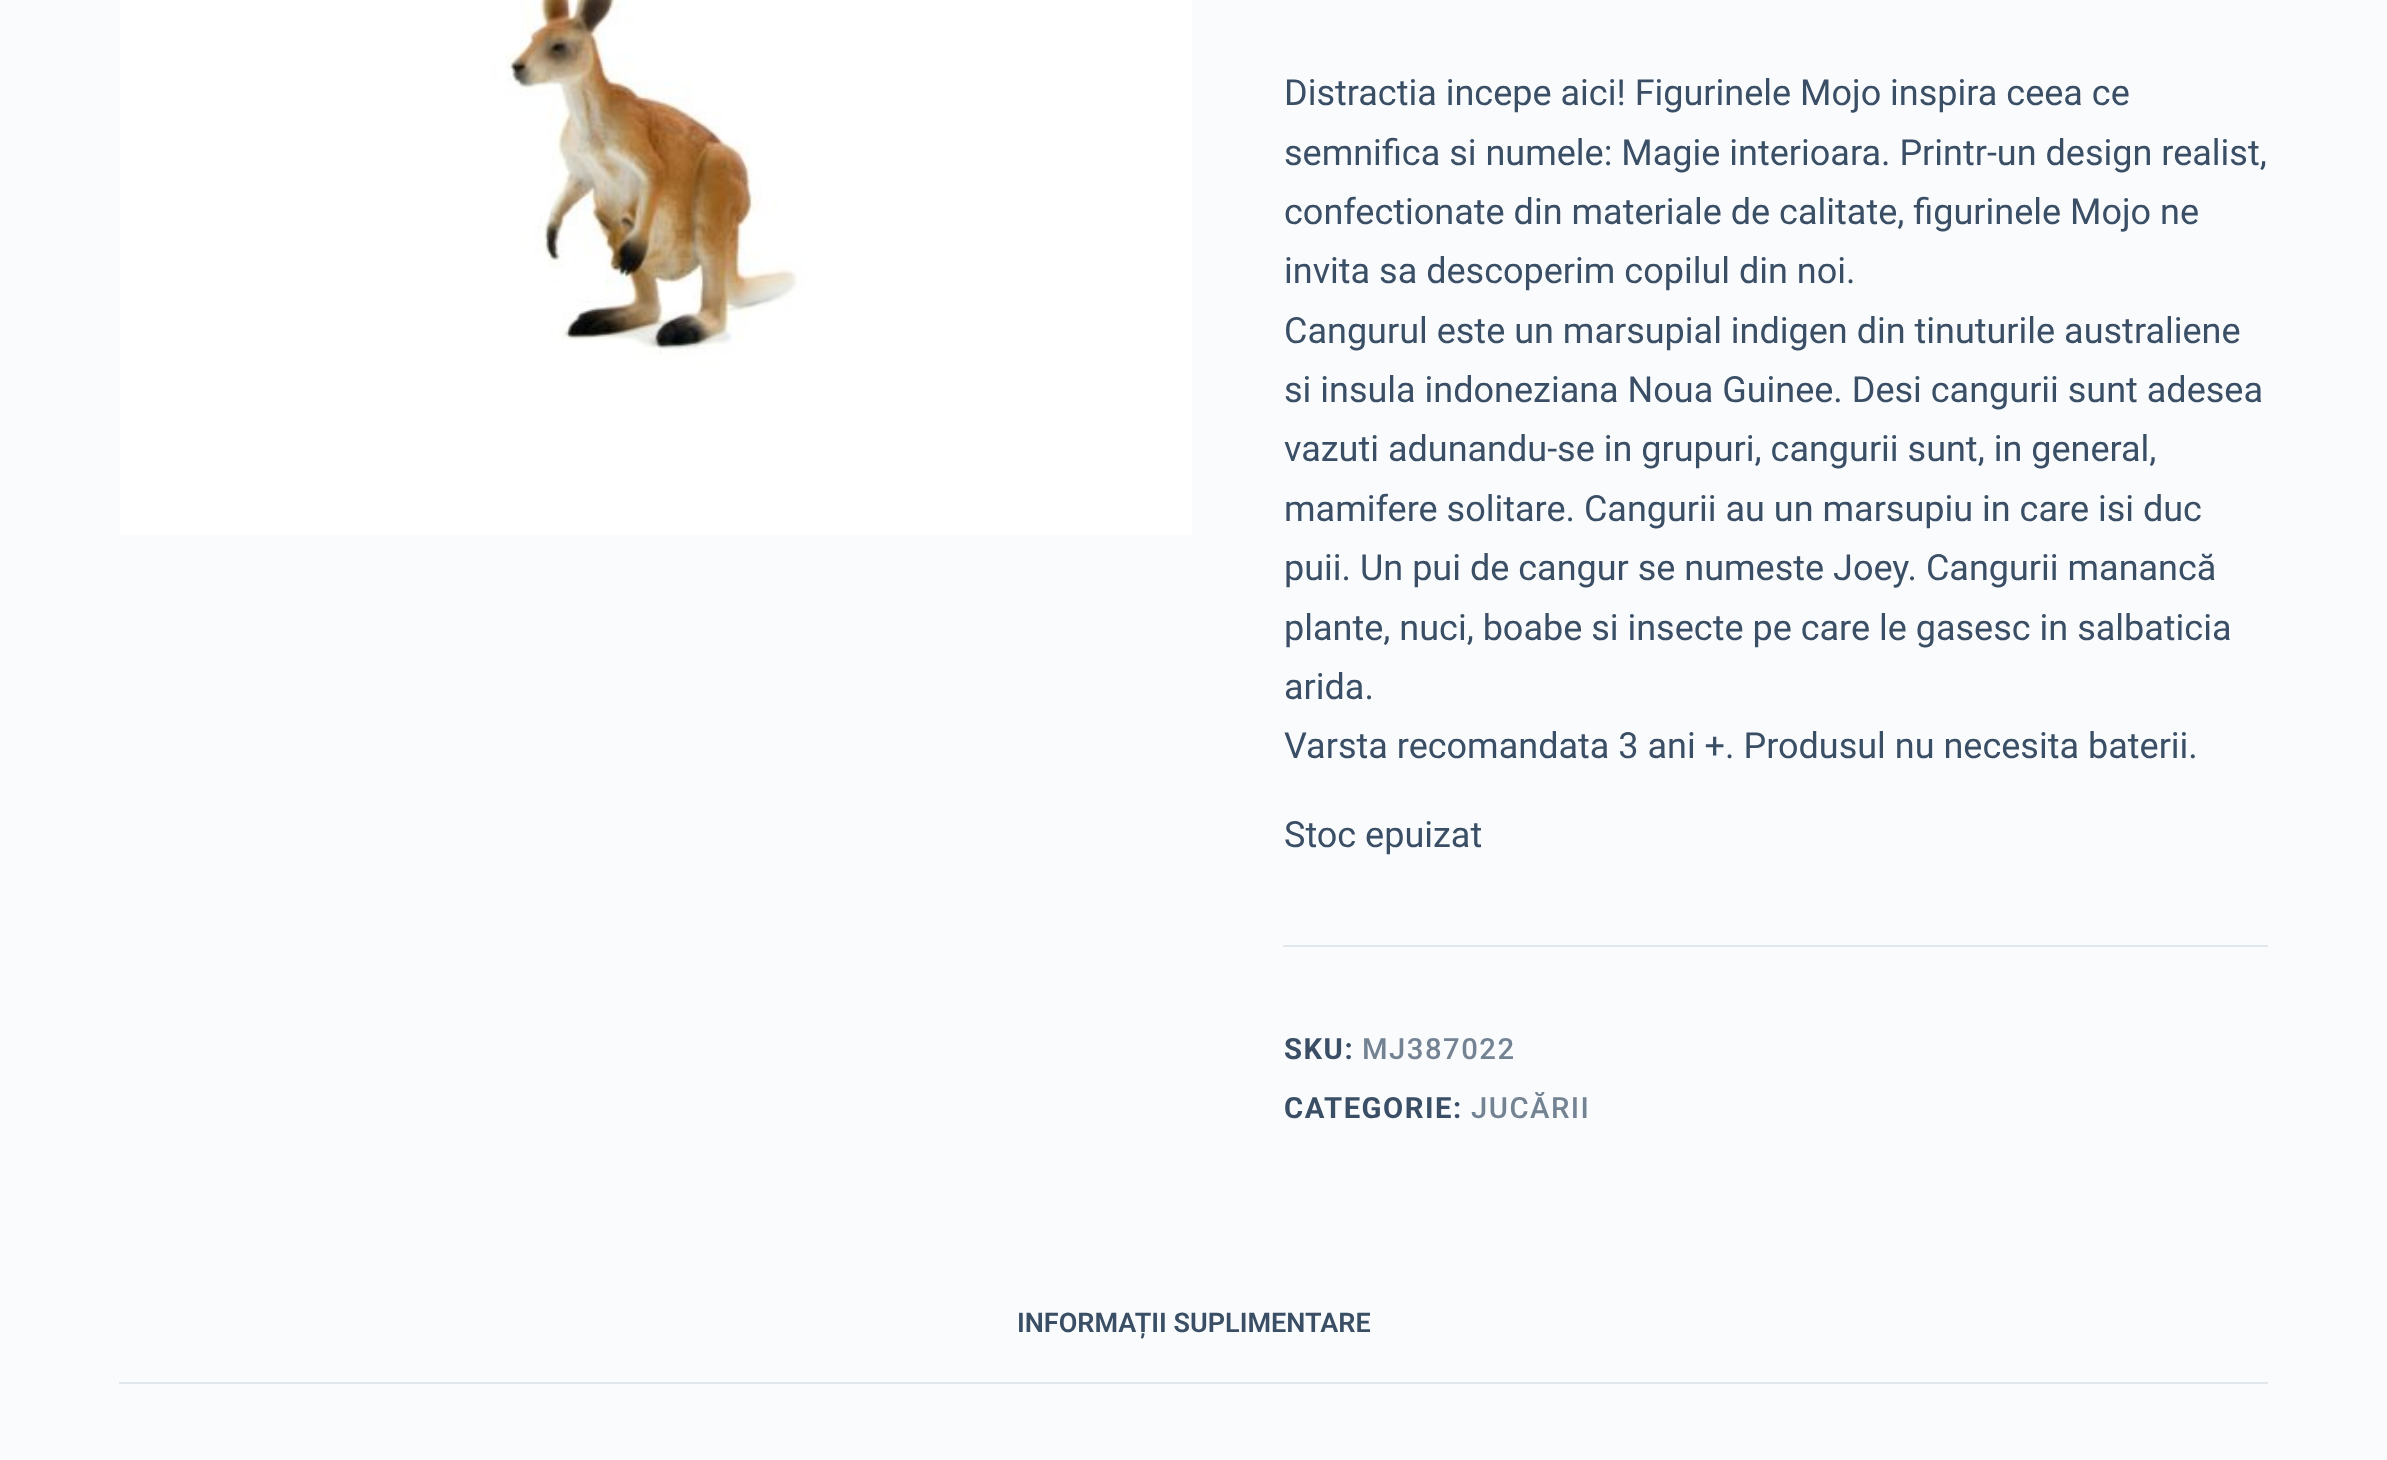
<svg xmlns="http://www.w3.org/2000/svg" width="2387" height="1460">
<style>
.a{font:36px Roboto;fill:#3a4f66}
.b{font:bold 29.25px Roboto;letter-spacing:1.5px;fill:#3a4f66}
.c{font:500 29.25px Roboto;letter-spacing:1.5px;fill:#748393}
.d{font:600 27px Roboto;fill:#3a4f66}
</style>
<rect width="100%" height="100%" fill="#fafbfc"/>
<image href="1.png" x="120" y="0" width="1072" height="535"/>
<path fill="#e1e8ed" d="M1283 945h985v2H1283z"/>
<path fill="#e1e8ed" d="M119 1382h2149v2H119z"/>
<text class="a" x="1284" y="105">Distractia incepe aici! Figurinele Mojo inspira ceea ce</text>
<text class="a" x="1284" y="165">semnifica si numele: Magie interioara. Printr-un design realist,</text>
<text class="a" x="1284" y="224">confectionate din materiale de calitate, figurinele Mojo ne</text>
<text class="a" x="1284" y="283">invita sa descoperim copilul din noi.</text>
<text class="a" x="1284" y="343">Cangurul este un marsupial indigen din tinuturile australiene</text>
<text class="a" x="1284" y="402">si insula indoneziana Noua Guinee. Desi cangurii sunt adesea</text>
<text class="a" x="1284" y="461">vazuti adunandu-se in grupuri, cangurii sunt, in general,</text>
<text class="a" x="1284" y="521">mamifere solitare. Cangurii au un marsupiu in care isi duc</text>
<text class="a" x="1284" y="580">puii. Un pui de cangur se numeste Joey. Cangurii manancă</text>
<text class="a" x="1284" y="640">plante, nuci, boabe si insecte pe care le gasesc in salbaticia</text>
<text class="a" x="1284" y="699">arida.</text>
<text class="a" x="1284" y="758">Varsta recomandata 3 ani +. Produsul nu necesita baterii.</text>
<text class="a" x="1284" y="847">Stoc epuizat</text>
<text class="b" x="1284" y="1059">SKU:</text>
<text class="c" x="1362" y="1059">MJ387022</text>
<text class="b" x="1284" y="1118">CATEGORIE:</text>
<text class="c" x="1471" y="1118">JUCĂRII</text>
<text class="d" x="1017" y="1332">INFORMAȚII SUPLIMENTARE</text>
</svg>
